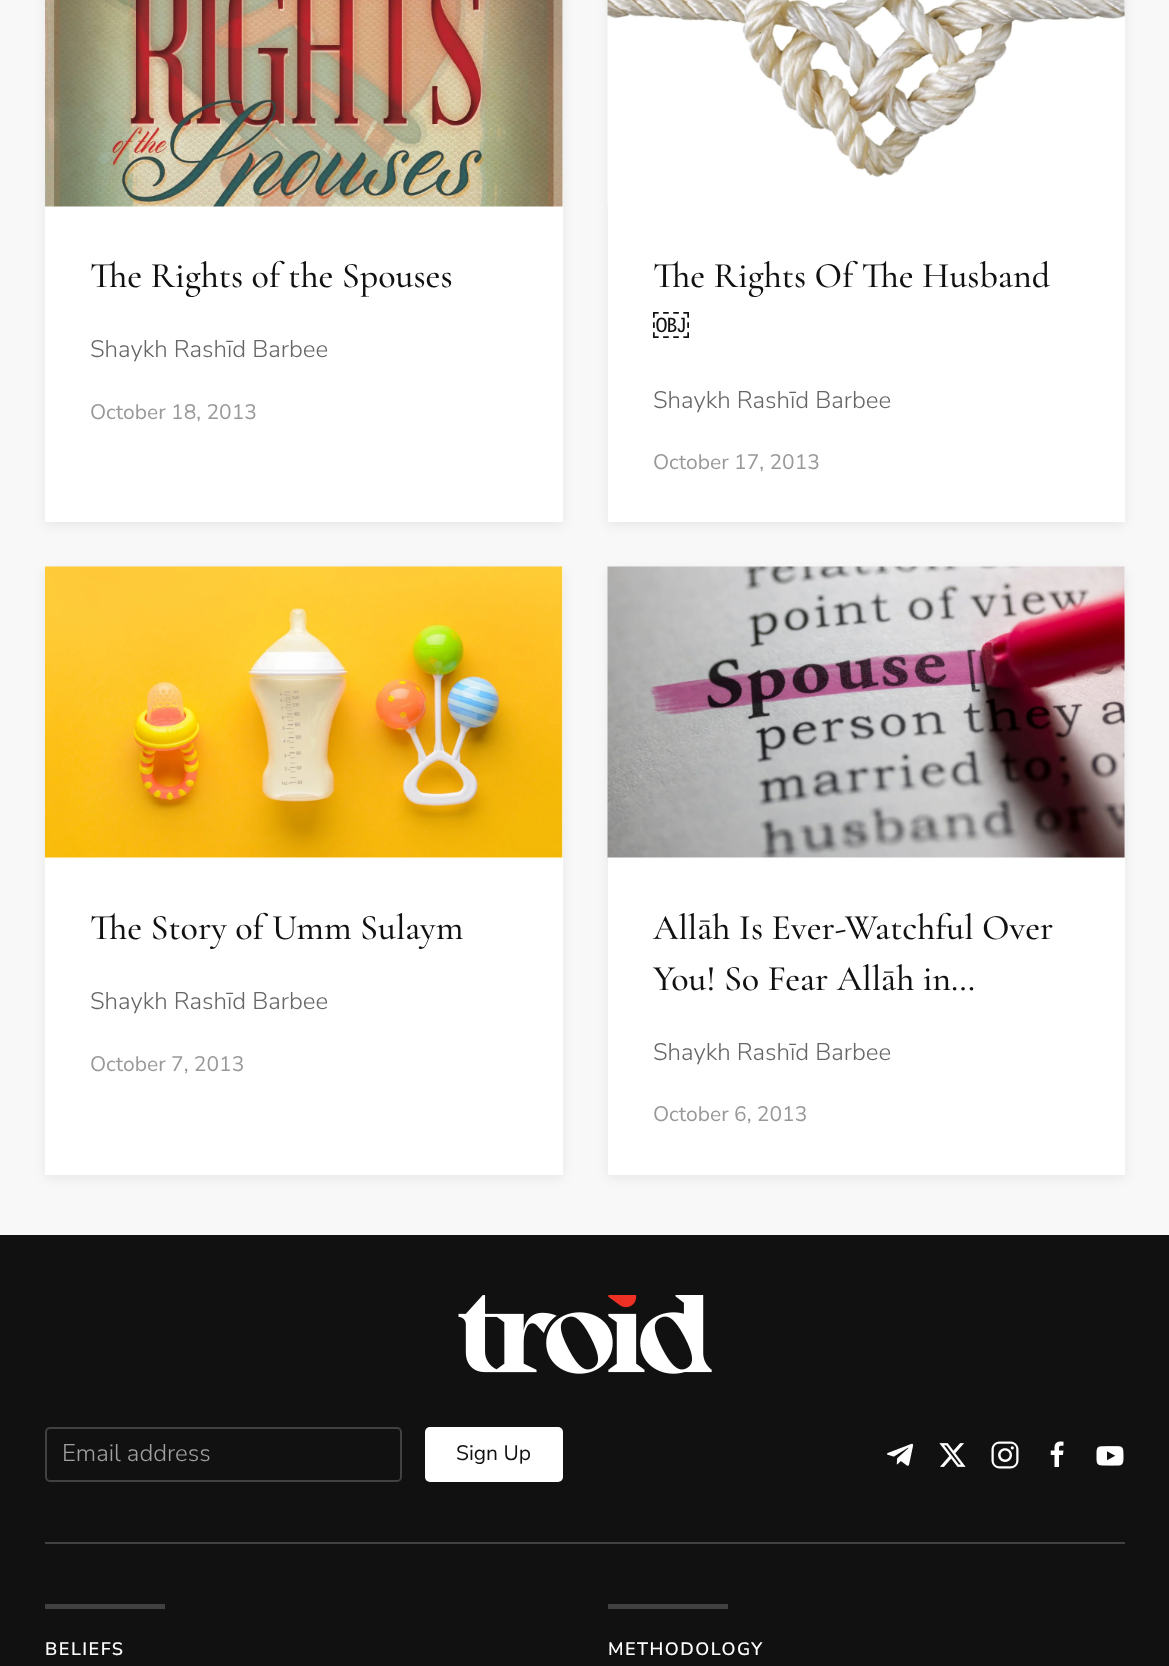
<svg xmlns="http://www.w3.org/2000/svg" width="1169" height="1666">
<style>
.a{font:300 36px Cormorant Garamond;fill:#111}
.b{font:200 24px 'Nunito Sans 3';fill:#666}
.c{font:200 21px 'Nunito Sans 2';fill:#999}
.d{font:36px Liberation Serif;fill:#111}
.e{font:200 24px 'Nunito Sans 3';fill:#a0a0a0}
.f{font:200 21px 'Nunito Sans 2';fill:#111}
.g{font:200 18px Nunito Sans;letter-spacing:1.5px;fill:#fff}
</style>
<rect width="100%" height="100%" fill="#f8f8f8"/>
<path fill="#00000012" filter="blur(6px)" d="M45 -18h518v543H45z"/>
<path fill="#fff" d="M45 0h518v522H45z"/>
<image href="1.png" x="45" y="0" width="518" height="207"/>
<path fill="#00000012" filter="blur(6px)" d="M608 -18h517v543H608z"/>
<path fill="#fff" d="M608 0h517v522H608z"/>
<image href="2.png" x="607" y="0" width="518" height="206"/>
<path fill="#00000012" filter="blur(6px)" d="M45 570h518v608H45z"/>
<path fill="#fff" d="M45 567h518v608H45z"/>
<image href="3.png" x="45" y="566" width="518" height="292"/>
<path fill="#00000012" filter="blur(6px)" d="M608 570h517v608H608z"/>
<path fill="#fff" d="M608 567h517v608H608z"/>
<image href="4.png" x="607" y="566" width="518" height="292"/>
<path fill="#111" d="M0 1235h1169v431H0z"/>
<image href="5.png" x="458" y="1295" width="254" height="79"/>
<rect fill="none" stroke="#414141" stroke-width="2" x="46" y="1428" width="355" height="53" rx="4"/>
<rect fill="#fff" x="425" y="1427" width="138" height="55" rx="5"/>
<image href="6.png" x="886" y="1443" width="28" height="23"/>
<image href="7.png" x="939" y="1443" width="27" height="24"/>
<image href="8.png" x="991" y="1441" width="28" height="28"/>
<image href="9.png" x="1050" y="1441" width="14" height="26"/>
<image href="10.png" x="1096" y="1446" width="28" height="20"/>
<path fill="#414141" d="M45 1542h1080v2H45z"/>
<path fill="#414141" d="M45 1604h120v5H45z"/>
<path fill="#414141" d="M608 1604h120v5H608z"/>
<text class="a" x="90" y="287">The Rights of the Spouses</text>
<text class="b" x="90" y="357">Shaykh Rashīd Barbee</text>
<text class="c" x="90" y="419">October 18, 2013</text>
<text class="a" x="653" y="287">The Rights Of The Husband</text>
<text class="d" x="653" y="338">￼</text>
<text class="b" x="653" y="408">Shaykh Rashīd Barbee</text>
<text class="c" x="653" y="469">October 17, 2013</text>
<text class="a" x="90" y="939">The Story of Umm Sulaym</text>
<text class="b" x="90" y="1009">Shaykh Rashīd Barbee</text>
<text class="c" x="90" y="1071">October 7, 2013</text>
<text class="a" x="653" y="939">Allāh Is Ever-Watchful Over</text>
<text class="a" x="653" y="990">You! So Fear Allāh in…</text>
<text class="b" x="653" y="1060">Shaykh Rashīd Barbee</text>
<text class="c" x="653" y="1121">October 6, 2013</text>
<text class="e" x="62" y="1461">Email address</text>
<text class="f" x="456" y="1460">Sign Up</text>
<text class="g" x="45" y="1655">BELIEFS</text>
<text class="g" x="608" y="1655">METHODOLOGY</text>
</svg>
